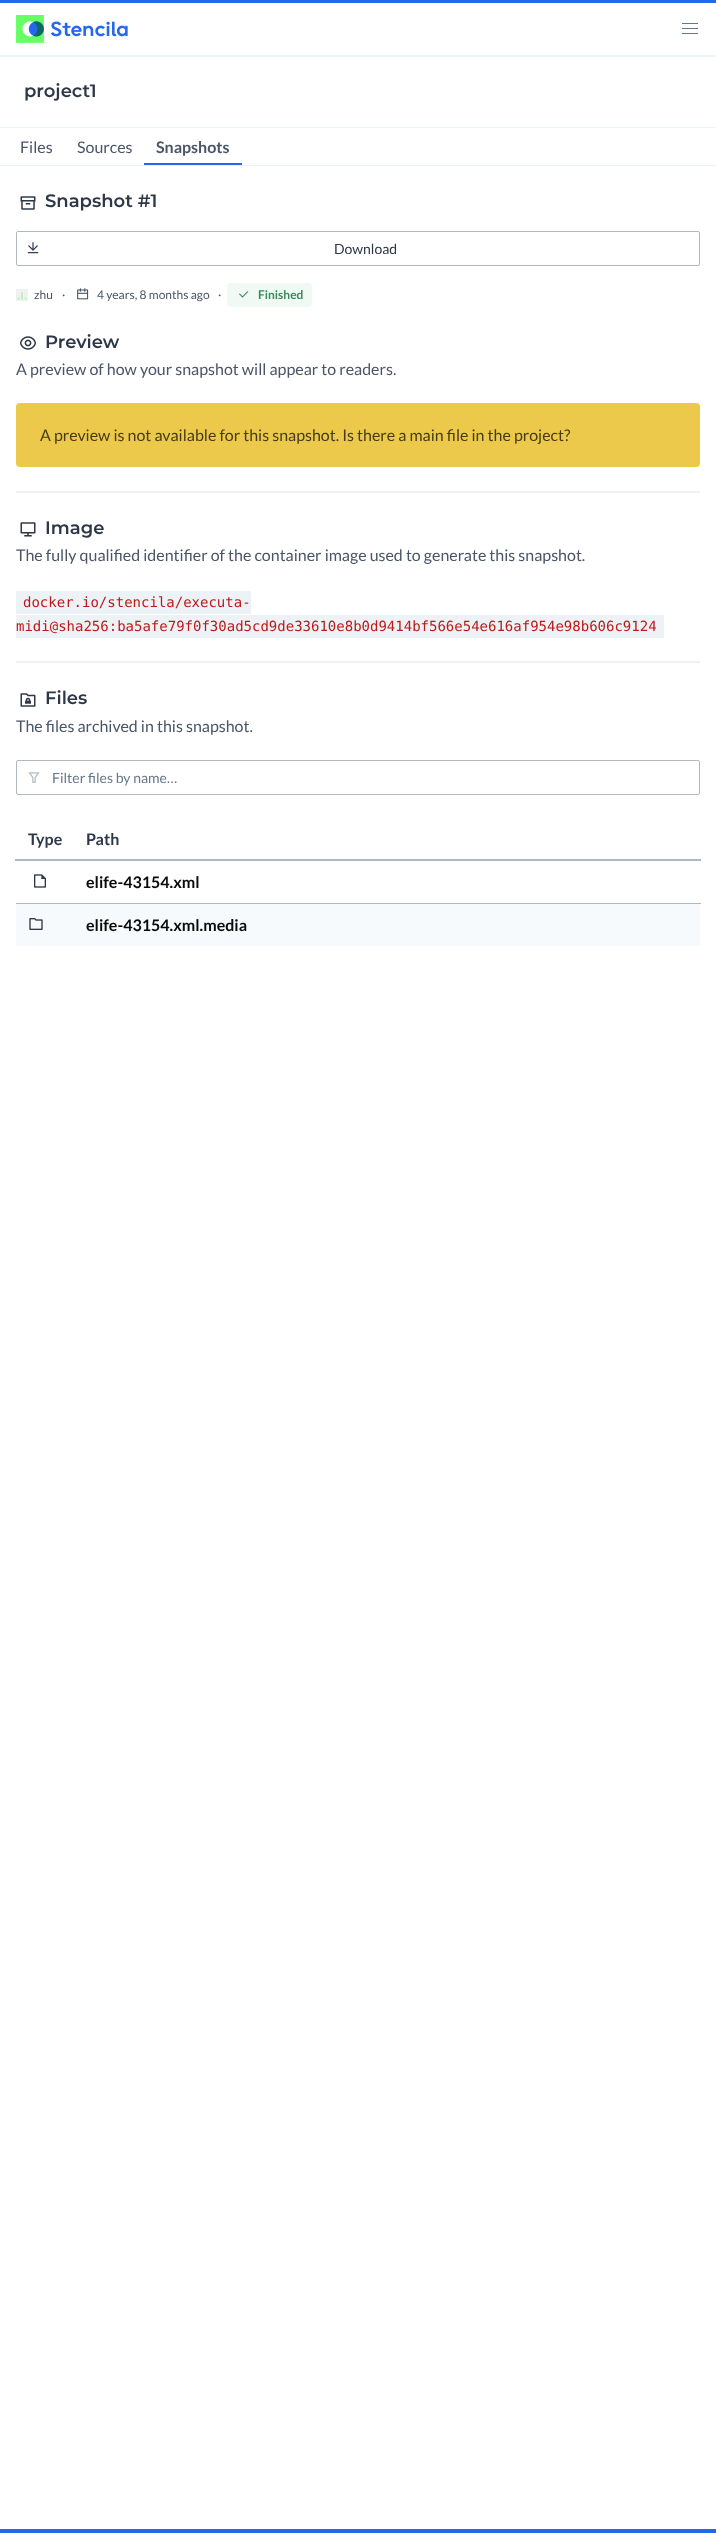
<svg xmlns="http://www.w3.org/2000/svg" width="716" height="2533">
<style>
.a{font:600 18px Montserrat;fill:#2d3748}
.b{font:16px Lato;fill:#4a5568}
.c{font:bold 16px Lato;fill:#4a5568}
.d{font:14px Lato;fill:#2d3748}
.e{font:12px Lato;fill:#4a5568}
.f{font:bold 12px Lato;fill:#358d5a}
.g{font:16px Lato;fill:#473c17}
.h{font:14px DejaVu Sans Mono;fill:#bd1919}
.i{font:14px Lato;fill:#67778e}
.j{font:bold 16px Lato;fill:#2d3748}
.k{font:bold 16px Lato;fill:#0a0a0a}
</style>
<rect width="100%" height="100%" fill="#fff"/>
<path fill="#edf2f7" d="M0 55h716v2H0z"/>
<path fill="#2568ef" d="M0 0h716v3H0z"/>
<image href="1.png" x="16" y="15" width="112" height="28"/>
<path fill="#67778e" d="M682 23h16v1H682z"/>
<path fill="#67778e" d="M682 28h16v1H682z"/>
<path fill="#67778e" d="M682 33h16v1H682z"/>
<path fill="#edf2f7" d="M0 127h716v1H0z"/>
<path fill="#edf2f7" d="M0 165h716v1H0z"/>
<path fill="#2568ef" d="M144 163h98v2H144z"/>
<image href="2.png" x="20" y="196" width="16" height="14"/>
<rect fill="none" stroke="#aeb8c3" x="16.5" y="231.5" width="683" height="34" rx="1.5"/>
<image href="3.png" x="27" y="242" width="12" height="12"/>
<image href="4.png" x="16" y="289" width="12" height="12"/>
<image href="5.png" x="77" y="288" width="12" height="12"/>
<rect fill="#f0f9f4" x="227" y="283" width="85" height="24" rx="4"/>
<image href="6.png" x="239" y="291" width="10" height="7"/>
<image href="7.png" x="20" y="336" width="16" height="14"/>
<rect fill="#ecc94b" x="16" y="403" width="684" height="64" rx="4"/>
<path fill="#edf2f7" d="M16 491h684v2H16z"/>
<image href="8.png" x="20" y="522" width="16" height="15"/>
<path fill="#edf2f7" d="M16 591h235v23H16z"/>
<path fill="#edf2f7" d="M16 615h648v23H16z"/>
<path fill="#edf2f7" d="M16 661h684v2H16z"/>
<image href="9.png" x="20" y="693" width="16" height="14"/>
<rect fill="none" stroke="#aeb8c3" x="16.5" y="760.5" width="683" height="34" rx="1.5"/>
<image href="10.png" x="28" y="772" width="12" height="11"/>
<path fill="#aeb8c3" d="M15 859h686v2H15z"/>
<image href="11.png" x="34" y="874" width="12" height="14"/>
<path fill="#aeb8c3" d="M16 903h685v1H16z"/>
<path fill="#f7fafc" d="M16 904h684v42H16z"/>
<image href="12.png" x="29" y="918" width="14" height="12"/>
<path fill="#2568ef" d="M0 2529h716v4H0z"/>
<text class="a" x="24" y="97">project1</text>
<text class="b" x="20" y="153">Files</text>
<text class="b" x="77" y="153">Sources</text>
<text class="c" x="156" y="153">Snapshots</text>
<text class="a" x="45" y="207">Snapshot #1</text>
<text class="d" x="334" y="254">Download</text>
<text class="e" x="34" y="299">zhu</text>
<text class="e" x="62" y="299">·</text>
<text class="e" x="97" y="299">4 years, 8 months ago</text>
<text class="e" x="218" y="299">·</text>
<text class="f" x="258" y="299">Finished</text>
<text class="a" x="45" y="348">Preview</text>
<text class="b" x="16" y="375">A preview of how your snapshot will appear to readers.</text>
<text class="g" x="40" y="441">A preview is not available for this snapshot. Is there a main file in the project?</text>
<text class="a" x="45" y="534">Image</text>
<text class="b" x="16" y="561">The fully qualified identifier of the container image used to generate this snapshot.</text>
<text class="h" x="23" y="607">docker.io/stencila/executa-</text>
<text class="h" x="16" y="631">midi@sha256:ba5afe79f0f30ad5cd9de33610e8b0d9414bf566e54e616af954e98b606c9124</text>
<text class="a" x="45" y="704">Files</text>
<text class="b" x="16" y="732">The files archived in this snapshot.</text>
<text class="i" x="52" y="783">Filter files by name…</text>
<text class="j" x="28" y="845">Type</text>
<text class="j" x="86" y="845">Path</text>
<text class="k" x="86" y="888">elife-43154.xml</text>
<text class="k" x="86" y="931">elife-43154.xml.media</text>
</svg>
